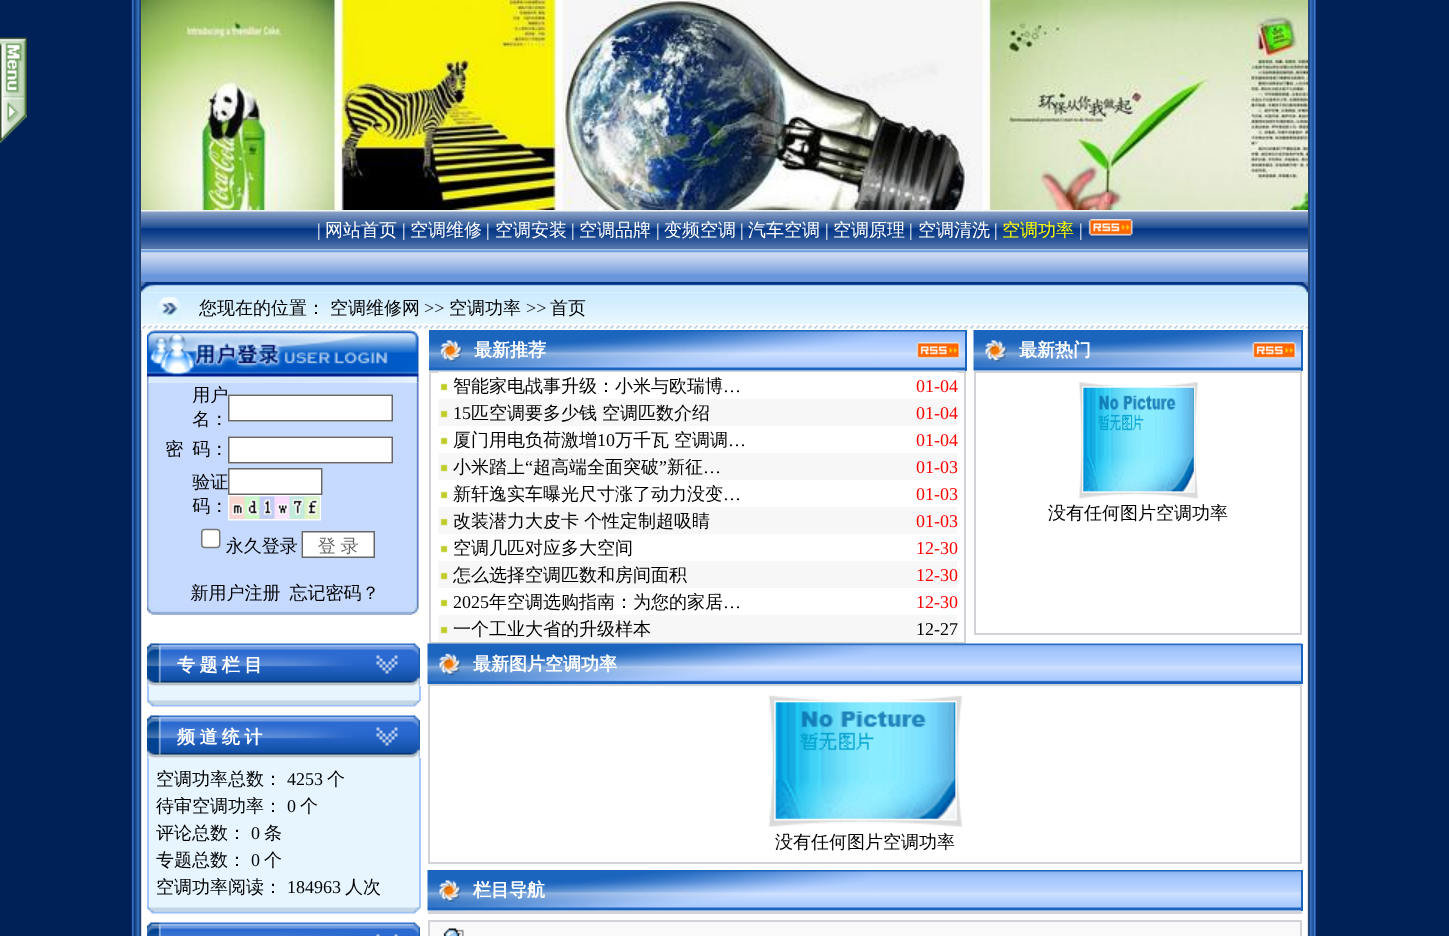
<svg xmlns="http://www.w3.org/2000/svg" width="1449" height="936">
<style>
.a{font:18px Liberation Serif;fill:#fff}
.b{font:500 18px WenQuanYi Zen Hei;fill:#fff}
.c{font:500 18px WenQuanYi Zen Hei;fill:#ff0}
.d{font:500 18px WenQuanYi Zen Hei;fill:#000}
.e{font:18px Liberation Serif;fill:#000}
.f{font:bold 18px WenQuanYi Zen Hei;fill:#fff}
.g{font:18px Liberation Serif;fill:#f00}
</style>
<rect width="100%" height="100%" fill="#fff"/>
<image href="1.png" x="0" y="0" width="1449" height="936"/>
<image href="2.png" x="0" y="37" width="27" height="106"/>
<image href="3.png" x="141" y="0" width="1167" height="210"/>
<image href="4.png" x="141" y="210" width="1167" height="39"/>
<image href="5.png" x="1088" y="219" width="45" height="17"/>
<image href="6.png" x="141" y="249" width="1167" height="33"/>
<image href="8.png" x="141" y="292" width="1167" height="32"/>
<image href="7.png" x="141" y="282" width="1167" height="11"/>
<image href="9.png" x="157" y="297" width="24" height="24"/>
<image href="10.png" x="141" y="324" width="1167" height="6"/>
<image href="12.png" x="147" y="382" width="272" height="221"/>
<image href="11.png" x="147" y="330" width="272" height="53"/>
<image href="13.png" x="166" y="385" width="227" height="217"/>
<image href="14.png" x="147" y="603" width="272" height="12"/>
<image href="15.png" x="429" y="330" width="536" height="41"/>
<path fill="#1c65be" d="M965 330h2v41H965z"/>
<image href="16.png" x="916" y="342" width="45" height="17"/>
<path fill="none" stroke="#d2d3d9" stroke-width="2" d="M430 372h535v271H430z"/>
<path fill="#fff" d="M438 372h519v1H438z"/>
<image href="17.png" x="440" y="383" width="8" height="8"/>
<path fill="#f7f7f7" d="M438 399h519v27H438z"/>
<image href="18.png" x="440" y="410" width="8" height="8"/>
<image href="17.png" x="440" y="437" width="8" height="8"/>
<path fill="#f7f7f7" d="M438 453h519v27H438z"/>
<image href="18.png" x="440" y="464" width="8" height="8"/>
<image href="17.png" x="440" y="491" width="8" height="8"/>
<path fill="#f7f7f7" d="M438 507h519v27H438z"/>
<image href="18.png" x="440" y="518" width="8" height="8"/>
<image href="17.png" x="440" y="545" width="8" height="8"/>
<path fill="#f7f7f7" d="M438 561h519v27H438z"/>
<image href="18.png" x="440" y="572" width="8" height="8"/>
<image href="17.png" x="440" y="599" width="8" height="8"/>
<path fill="#f7f7f7" d="M438 615h519v27H438z"/>
<image href="18.png" x="440" y="626" width="8" height="8"/>
<image href="19.png" x="973" y="330" width="328" height="41"/>
<path fill="#1c65be" d="M1301 330h2v41H1301z"/>
<image href="20.png" x="1252" y="342" width="45" height="17"/>
<path fill="none" stroke="#d2d3d9" stroke-width="2" d="M975 372h326v262H975z"/>
<image href="21.png" x="1078" y="382" width="121" height="117"/>
<image href="22.png" x="147" y="643" width="273" height="43"/>
<path fill="#e6f5ff" d="M149 686h270v15H149z"/>
<path fill="#a4c6fc" d="M419 686h2v15H419z"/>
<path fill="#a4c6fc" d="M147 686h2v15H147z"/>
<image href="23.png" x="147" y="700" width="273" height="7"/>
<image href="22.png" x="147" y="715" width="273" height="43"/>
<path fill="#e6f5ff" d="M149 758h270v150H149z"/>
<path fill="#a4c6fc" d="M419 758h2v150H419z"/>
<path fill="#a4c6fc" d="M147 758h2v150H147z"/>
<image href="23.png" x="147" y="907" width="273" height="7"/>
<image href="24.png" x="147" y="922" width="273" height="14"/>
<image href="25.png" x="427" y="643" width="875" height="41"/>
<path fill="#1c65be" d="M1301 644h2v40H1301z"/>
<path fill="none" stroke="#d2d3d9" stroke-width="2" d="M429 685h872v178H429z"/>
<image href="26.png" x="768" y="695" width="195" height="132"/>
<image href="27.png" x="427" y="870" width="874" height="41"/>
<path fill="#1c65be" d="M1301 870h2v41H1301z"/>
<path fill="#d2d3d9" d="M428 911h874v3H428z"/>
<path fill="#f9f9f9" stroke="#d2d3d9" stroke-width="2" d="M429 921h872v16H429z"/>
<image href="28.png" x="443" y="928" width="21" height="8"/>
<text class="a" x="317" y="236">|</text>
<text class="b" x="325" y="236">网站首页</text>
<text class="a" x="402" y="236">|</text>
<text class="b" x="410" y="236">空调维修</text>
<text class="a" x="486" y="236">|</text>
<text class="b" x="495" y="236">空调安装</text>
<text class="a" x="571" y="236">|</text>
<text class="b" x="579" y="236">空调品牌</text>
<text class="a" x="656" y="236">|</text>
<text class="b" x="664" y="236">变频空调</text>
<text class="a" x="740" y="236">|</text>
<text class="b" x="748" y="236">汽车空调</text>
<text class="a" x="825" y="236">|</text>
<text class="b" x="833" y="236">空调原理</text>
<text class="a" x="909" y="236">|</text>
<text class="b" x="918" y="236">空调清洗</text>
<text class="a" x="994" y="236">|</text>
<text class="c" x="1002" y="236">空调功率</text>
<text class="a" x="1079" y="236">|</text>
<text class="d" x="199" y="314">您现在的位置：</text>
<text class="d" x="330" y="314">空调维修网</text>
<text class="e" x="424" y="314">&gt;&gt;</text>
<text class="d" x="449" y="314">空调功率</text>
<text class="e" x="526" y="314">&gt;&gt;</text>
<text class="d" x="550" y="314">首页</text>
<text class="f" x="474" y="356">最新推荐</text>
<text class="d" x="453" y="392">智能家电战事升级：小米与欧瑞博</text>
<text class="e" x="723" y="392">…</text>
<text class="g" x="916" y="392">01-04</text>
<text class="e" x="453" y="419">15</text>
<text class="d" x="471" y="419">匹空调要多少钱</text>
<text class="d" x="602" y="419">空调匹数介绍</text>
<text class="g" x="916" y="419">01-04</text>
<text class="d" x="453" y="446">厦门用电负荷激增</text>
<text class="e" x="597" y="446">10</text>
<text class="d" x="615" y="446">万千瓦</text>
<text class="d" x="674" y="446">空调调</text>
<text class="e" x="728" y="446">…</text>
<text class="g" x="916" y="446">01-04</text>
<text class="d" x="453" y="473">小米踏上</text>
<text class="e" x="525" y="473">“</text>
<text class="d" x="533" y="473">超高端全面突破</text>
<text class="e" x="659" y="473">”</text>
<text class="d" x="667" y="473">新征</text>
<text class="e" x="703" y="473">…</text>
<text class="g" x="916" y="473">01-03</text>
<text class="d" x="453" y="500">新轩逸实车曝光尺寸涨了动力没变</text>
<text class="e" x="723" y="500">…</text>
<text class="g" x="916" y="500">01-03</text>
<text class="d" x="453" y="527">改装潜力大皮卡</text>
<text class="d" x="584" y="527">个性定制超吸睛</text>
<text class="g" x="916" y="527">01-03</text>
<text class="d" x="453" y="554">空调几匹对应多大空间</text>
<text class="g" x="916" y="554">12-30</text>
<text class="d" x="453" y="581">怎么选择空调匹数和房间面积</text>
<text class="g" x="916" y="581">12-30</text>
<text class="e" x="453" y="608">2025</text>
<text class="d" x="489" y="608">年空调选购指南：为您的家居</text>
<text class="e" x="723" y="608">…</text>
<text class="g" x="916" y="608">12-30</text>
<text class="d" x="453" y="635">一个工业大省的升级样本</text>
<text class="e" x="916" y="635">12-27</text>
<text class="f" x="1019" y="356">最新热门</text>
<text class="d" x="1048" y="519">没有任何图片空调功率</text>
<text class="f" x="177" y="671" word-spacing="-1">专 题 栏 目</text>
<text class="f" x="177" y="743" word-spacing="-1">频 道 统 计</text>
<text class="d" x="156" y="785">空调功率总数：</text>
<text class="e" x="287" y="785">4253</text>
<text class="d" x="327" y="785">个</text>
<text class="d" x="156" y="812">待审空调功率：</text>
<text class="e" x="287" y="812">0</text>
<text class="d" x="300" y="812">个</text>
<text class="d" x="156" y="839">评论总数：</text>
<text class="e" x="251" y="839">0</text>
<text class="d" x="264" y="839">条</text>
<text class="d" x="156" y="866">专题总数：</text>
<text class="e" x="251" y="866">0</text>
<text class="d" x="264" y="866">个</text>
<text class="d" x="156" y="893">空调功率阅读：</text>
<text class="e" x="287" y="893">184963</text>
<text class="d" x="345" y="893">人次</text>
<text class="f" x="473" y="670">最新图片空调功率</text>
<text class="d" x="775" y="848">没有任何图片空调功率</text>
<text class="f" x="473" y="896">栏目导航</text>
</svg>
